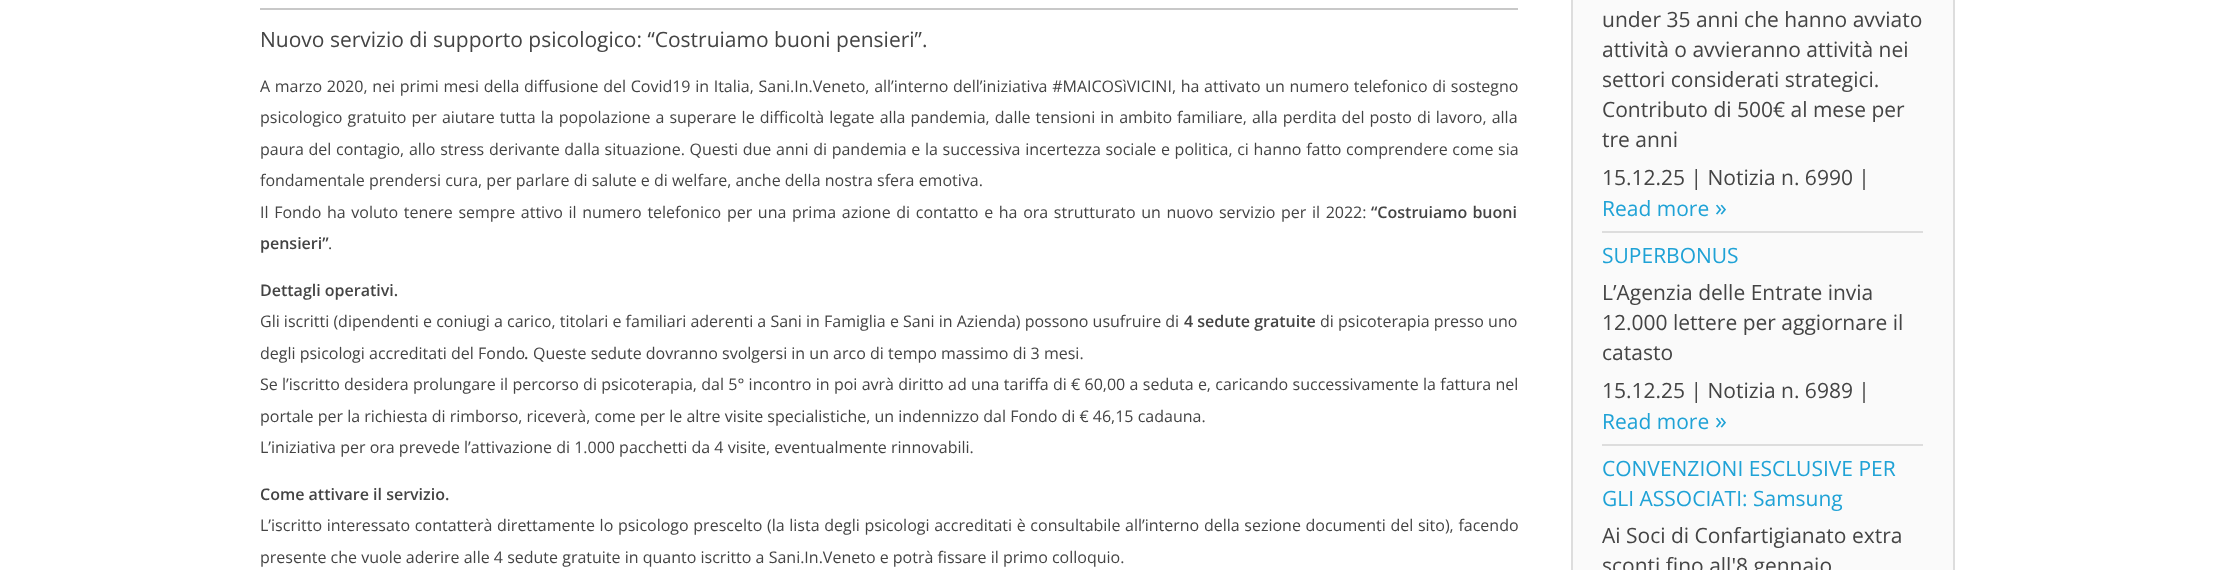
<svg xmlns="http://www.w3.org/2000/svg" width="2213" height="570">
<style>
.a{font:21px Open Sans;fill:#444}
.b{font:16px Open Sans;fill:#444}
.c{font:600 16px Open Sans;fill:#444}
.d{font:21px Open Sans;fill:#1fa2d6}
.e{font:24px Open Sans;fill:#1fa2d6}
</style>
<rect width="100%" height="100%" fill="#fff"/>
<path fill="#c8c8c8" d="M260 8h1258v2H260z"/>
<path fill="#fafafa" stroke="#ddd" stroke-width="2" d="M1572 -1h382v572H1572z"/>
<path fill="#ddd" d="M1602 231h321v2H1602z"/>
<path fill="#ddd" d="M1602 444h321v2H1602z"/>
<text class="a" x="260" y="47">Nuovo servizio di supporto psicologico: “Costruiamo buoni pensieri”.</text>
<text class="b" x="260" y="92" word-spacing="0.5">A marzo 2020, nei primi mesi della diffusione del Covid19 in Italia, Sani.In.Veneto, all’interno dell’iniziativa #MAICOSìVICINI, ha attivato un numero telefonico di sostegno</text>
<text class="b" x="260" y="123" word-spacing="0.9">psicologico gratuito per aiutare tutta la popolazione a superare le difficoltà legate alla pandemia, dalle tensioni in ambito familiare, alla perdita del posto di lavoro, alla</text>
<text class="b" x="260" y="155" word-spacing="0.5">paura del contagio, allo stress derivante dalla situazione. Questi due anni di pandemia e la successiva incertezza sociale e politica, ci hanno fatto comprendere come sia</text>
<text class="b" x="260" y="186">fondamentale prendersi cura, per parlare di salute e di welfare, anche della nostra sfera emotiva.</text>
<text class="b" x="260" y="218" word-spacing="1.5">Il Fondo ha voluto tenere sempre attivo il numero telefonico per una prima azione di contatto e ha ora strutturato un nuovo servizio per il 2022:</text>
<text class="c" x="1371" y="218" word-spacing="1">“Costruiamo buoni</text>
<text class="c" x="260" y="249">pensieri”</text>
<text class="b" x="328" y="249">.</text>
<text class="c" x="260" y="296">Dettagli operativi.</text>
<text class="b" x="260" y="327">Gli iscritti (dipendenti e coniugi a carico, titolari e familiari aderenti a Sani in Famiglia e Sani in Azienda) possono usufruire di</text>
<text class="c" x="1184" y="327">4 sedute gratuite</text>
<text class="b" x="1320" y="327">di psicoterapia presso uno</text>
<text class="b" x="260" y="359">degli psicologi accreditati del Fondo</text>
<text class="c" x="524" y="359">.</text>
<text class="b" x="533" y="359">Queste sedute dovranno svolgersi in un arco di tempo massimo di 3 mesi.</text>
<text class="b" x="260" y="390" word-spacing="0.15">Se l’iscritto desidera prolungare il percorso di psicoterapia, dal 5° incontro in poi avrà diritto ad una tariffa di € 60,00 a seduta e, caricando successivamente la fattura nel</text>
<text class="b" x="260" y="422">portale per la richiesta di rimborso, riceverà, come per le altre visite specialistiche, un indennizzo dal Fondo di € 46,15 cadauna.</text>
<text class="b" x="260" y="453">L’iniziativa per ora prevede l’attivazione di 1.000 pacchetti da 4 visite, eventualmente rinnovabili.</text>
<text class="c" x="260" y="500">Come attivare il servizio.</text>
<text class="b" x="260" y="531" word-spacing="0.5">L’iscritto interessato contatterà direttamente lo psicologo prescelto (la lista degli psicologi accreditati è consultabile all’interno della sezione documenti del sito), facendo</text>
<text class="b" x="260" y="563">presente che vuole aderire alle 4 sedute gratuite in quanto iscritto a Sani.In.Veneto e potrà fissare il primo colloquio.</text>
<text class="a" x="1602" y="27">under 35 anni che hanno avviato</text>
<text class="a" x="1602" y="57">attività o avvieranno attività nei</text>
<text class="a" x="1602" y="87">settori considerati strategici.</text>
<text class="a" x="1602" y="117">Contributo di 500€ al mese per</text>
<text class="a" x="1602" y="147">tre anni</text>
<text class="a" x="1602" y="185">15.12.25 | Notizia n. 6990 |</text>
<text class="d" x="1602" y="216">Read more</text>
<text class="e" x="1715" y="216">»</text>
<text class="d" x="1602" y="263">SUPERBONUS</text>
<text class="a" x="1602" y="300">L’Agenzia delle Entrate invia</text>
<text class="a" x="1602" y="330">12.000 lettere per aggiornare il</text>
<text class="a" x="1602" y="360">catasto</text>
<text class="a" x="1602" y="398">15.12.25 | Notizia n. 6989 |</text>
<text class="d" x="1602" y="429">Read more</text>
<text class="e" x="1715" y="429">»</text>
<text class="d" x="1602" y="476">CONVENZIONI ESCLUSIVE PER</text>
<text class="d" x="1602" y="506">GLI ASSOCIATI: Samsung</text>
<text class="a" x="1602" y="543">Ai Soci di Confartigianato extra</text>
<text class="a" x="1602" y="573">sconti fino all'8 gennaio</text>
</svg>
